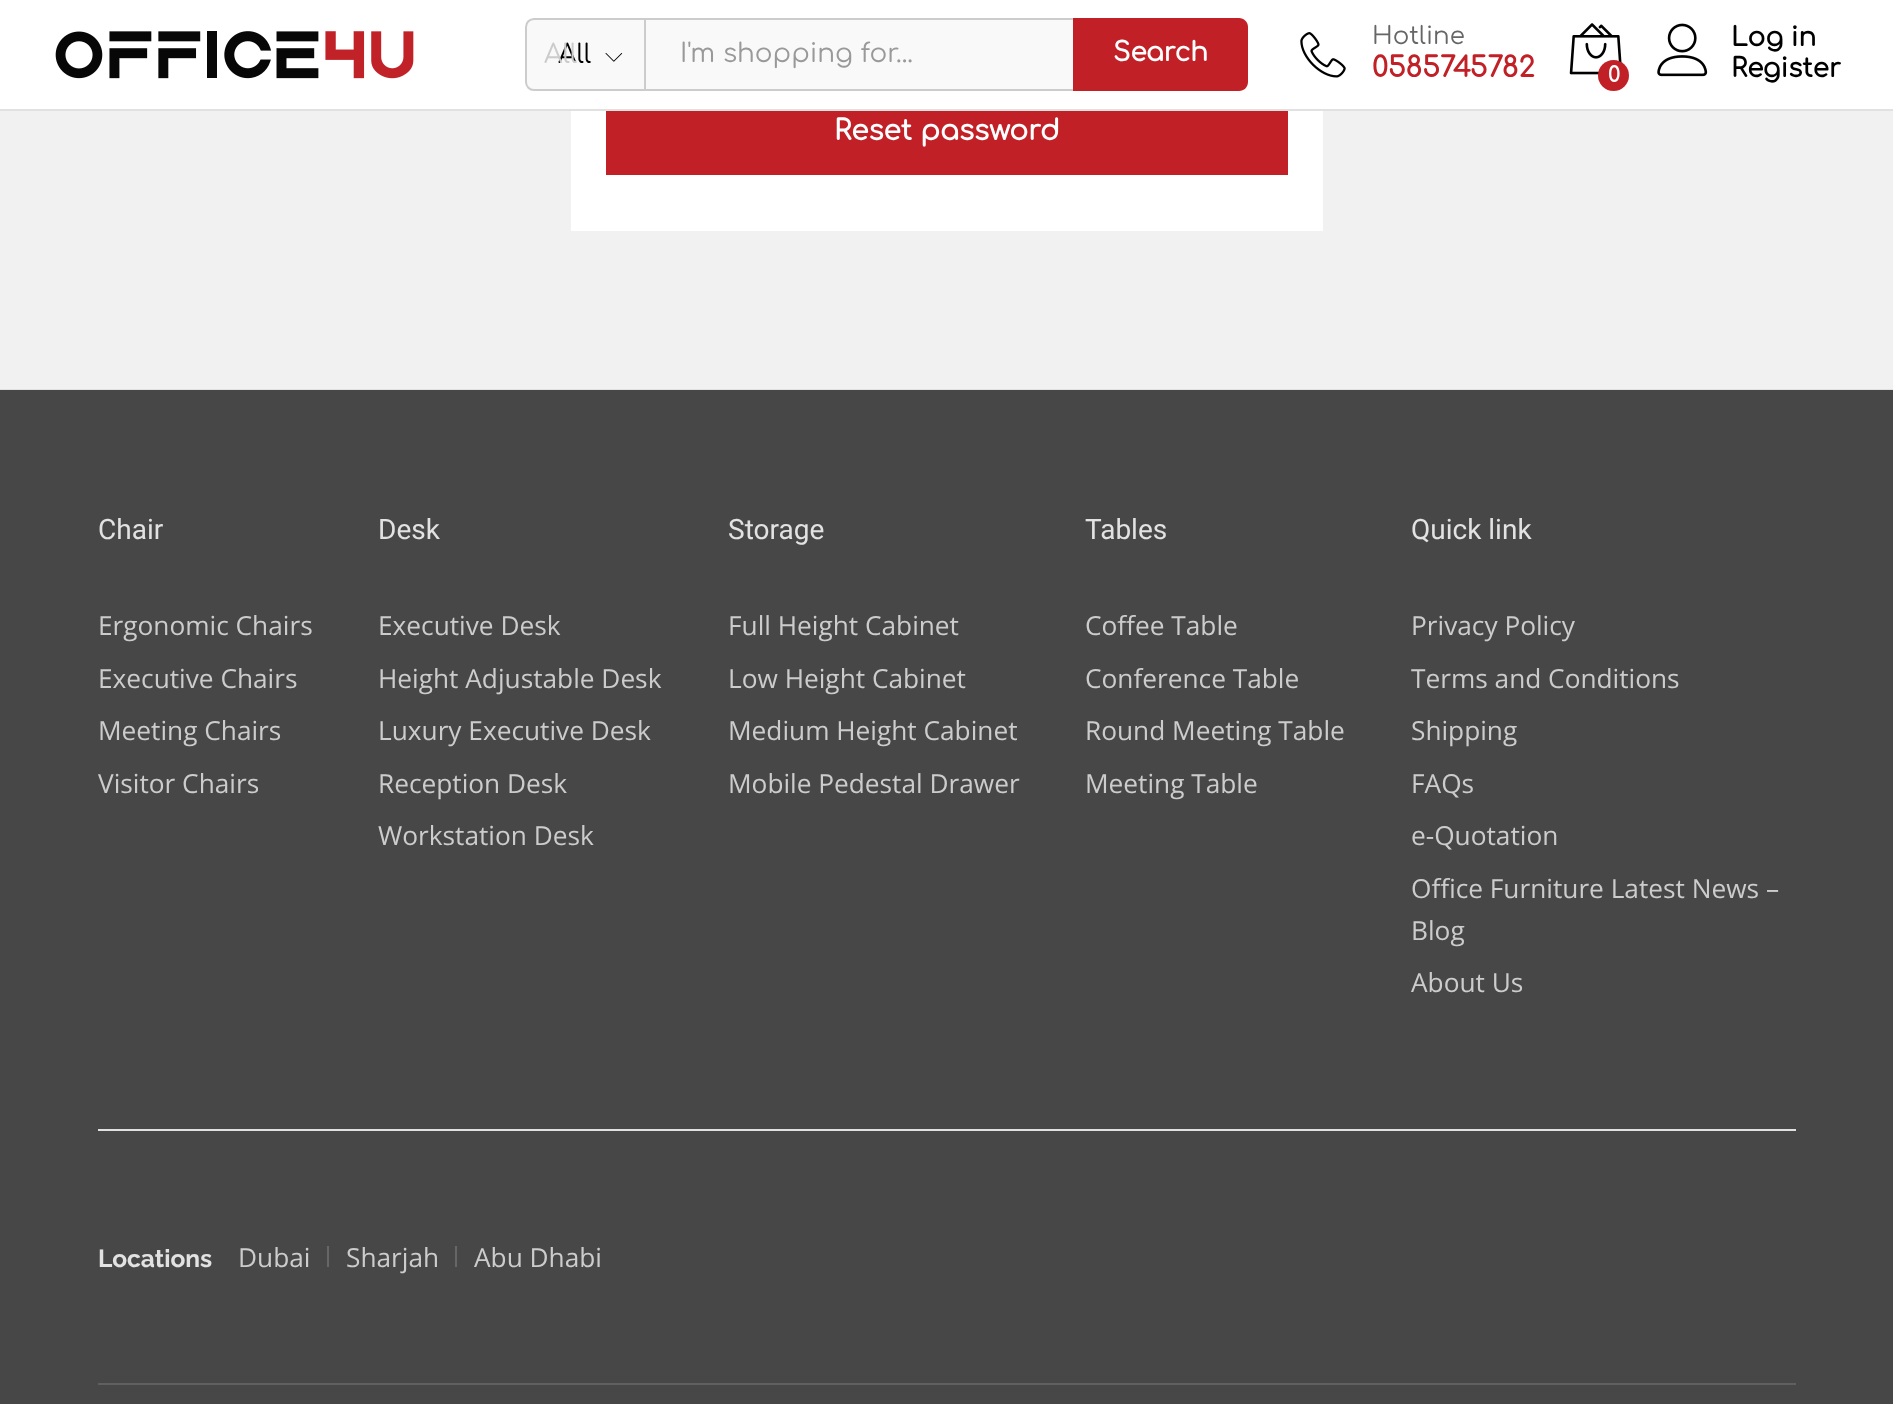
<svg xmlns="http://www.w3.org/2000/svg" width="1893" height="1404">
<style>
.a{font:26.25px Comfortaa;fill:#000}
.b{font:26.25px Comfortaa;fill:#ccc}
.c{font:26.25px Comfortaa;fill:#999}
.d{font:bold 26.25px Comfortaa;fill:#fff}
.e{font:24.5px Comfortaa;fill:#666}
.f{font:bold 28px Comfortaa;fill:#c12126}
.g{font:bold 21px Comfortaa;fill:#fff}
.h{font:bold 26.25px Comfortaa;fill:#000}
.i{font:bold 28px Comfortaa;fill:#fff}
.j{font:28px Roboto;fill:#e2e2e2}
.k{font:26.25px Open Sans;fill:#ccc}
.l{font:100 24.5px Raleway;fill:#e2e2e2}
</style>
<rect width="100%" height="100%" fill="#f1f1f1"/>
<path fill="#fff" d="M0 0h1893v109H0z"/>
<path fill="#e1e1e1" d="M0 109h1893v2H0z"/>
<image href="1.png" x="55" y="31" width="359" height="48"/>
<path fill="#f9f9f9" stroke="#ccc" stroke-width="2" d="M534 19h111v71h-111c-4.5 0-8-3.5-8-8v-55c0-4.5 3.5-8 8-8z"/>
<image href="2.png" x="605" y="53" width="18" height="9"/>
<path fill="#f9f9f9" d="M646 20h427v69H646z"/>
<path fill="#ccc" d="M646 18h427v2H646z"/>
<path fill="#ccc" d="M646 89h427v2H646z"/>
<path fill="#c12126" d="M1073 18h166c5 0 9 4 9 9v55c0 5-4 9-9 9h-166z"/>
<image href="3.png" x="1300" y="32" width="46" height="46"/>
<image href="4.png" x="1569" y="23" width="53" height="52"/>
<circle fill="#c12126" cx="1613.5" cy="75.5" r="15.5"/>
<image href="5.png" x="1657" y="23" width="51" height="54"/>
<path fill="#fff" d="M571 111h752v120H571z"/>
<path fill="#c12126" d="M606 111h682v64H606z"/>
<path fill="#e1e1e1" d="M0 389h1893v1H0z"/>
<path fill="#474747" d="M0 390h1893v1014H0z"/>
<path fill="#e1e1e1" d="M98 1129h1698v2H98z"/>
<path fill="#606060" d="M98 1383h1698v2H98z"/>
<path fill="#666" d="M327 1246h2v21H327z"/>
<path fill="#666" d="M455 1246h2v21H455z"/>
<text class="a" x="558" y="63">All</text>
<text class="b" x="544" y="63">All</text>
<text class="c" x="680" y="62">I'm shopping for...</text>
<text class="d" x="1113" y="61">Search</text>
<text class="e" x="1372" y="44">Hotline</text>
<text class="f" x="1372" y="77">0585745782</text>
<text class="g" x="1608" y="82">0</text>
<text class="h" x="1731" y="46">Log in</text>
<text class="h" x="1731" y="77">Register</text>
<text class="i" x="834" y="140">Reset password</text>
<text class="j" x="98" y="539">Chair</text>
<text class="k" x="98" y="635">Ergonomic Chairs</text>
<text class="k" x="98" y="688">Executive Chairs</text>
<text class="k" x="98" y="740">Meeting Chairs</text>
<text class="k" x="98" y="793">Visitor Chairs</text>
<text class="j" x="378" y="539">Desk</text>
<text class="k" x="378" y="635">Executive Desk</text>
<text class="k" x="378" y="688">Height Adjustable Desk</text>
<text class="k" x="378" y="740">Luxury Executive Desk</text>
<text class="k" x="378" y="793">Reception Desk</text>
<text class="k" x="378" y="845">Workstation Desk</text>
<text class="j" x="728" y="539">Storage</text>
<text class="k" x="728" y="635">Full Height Cabinet</text>
<text class="k" x="728" y="688">Low Height Cabinet</text>
<text class="k" x="728" y="740">Medium Height Cabinet</text>
<text class="k" x="728" y="793">Mobile Pedestal Drawer</text>
<text class="j" x="1085" y="539">Tables</text>
<text class="k" x="1085" y="635">Coffee Table</text>
<text class="k" x="1085" y="688">Conference Table</text>
<text class="k" x="1085" y="740">Round Meeting Table</text>
<text class="k" x="1085" y="793">Meeting Table</text>
<text class="j" x="1411" y="539">Quick link</text>
<text class="k" x="1411" y="635">Privacy Policy</text>
<text class="k" x="1411" y="688">Terms and Conditions</text>
<text class="k" x="1411" y="740">Shipping</text>
<text class="k" x="1411" y="793">FAQs</text>
<text class="k" x="1411" y="845">e-Quotation</text>
<text class="k" x="1411" y="898">Office Furniture Latest News –</text>
<text class="k" x="1411" y="940">Blog</text>
<text class="k" x="1411" y="992">About Us</text>
<text class="l" x="98" y="1267">Locations</text>
<text class="k" x="238" y="1267">Dubai</text>
<text class="k" x="346" y="1267">Sharjah</text>
<text class="k" x="474" y="1267">Abu Dhabi</text>
</svg>
